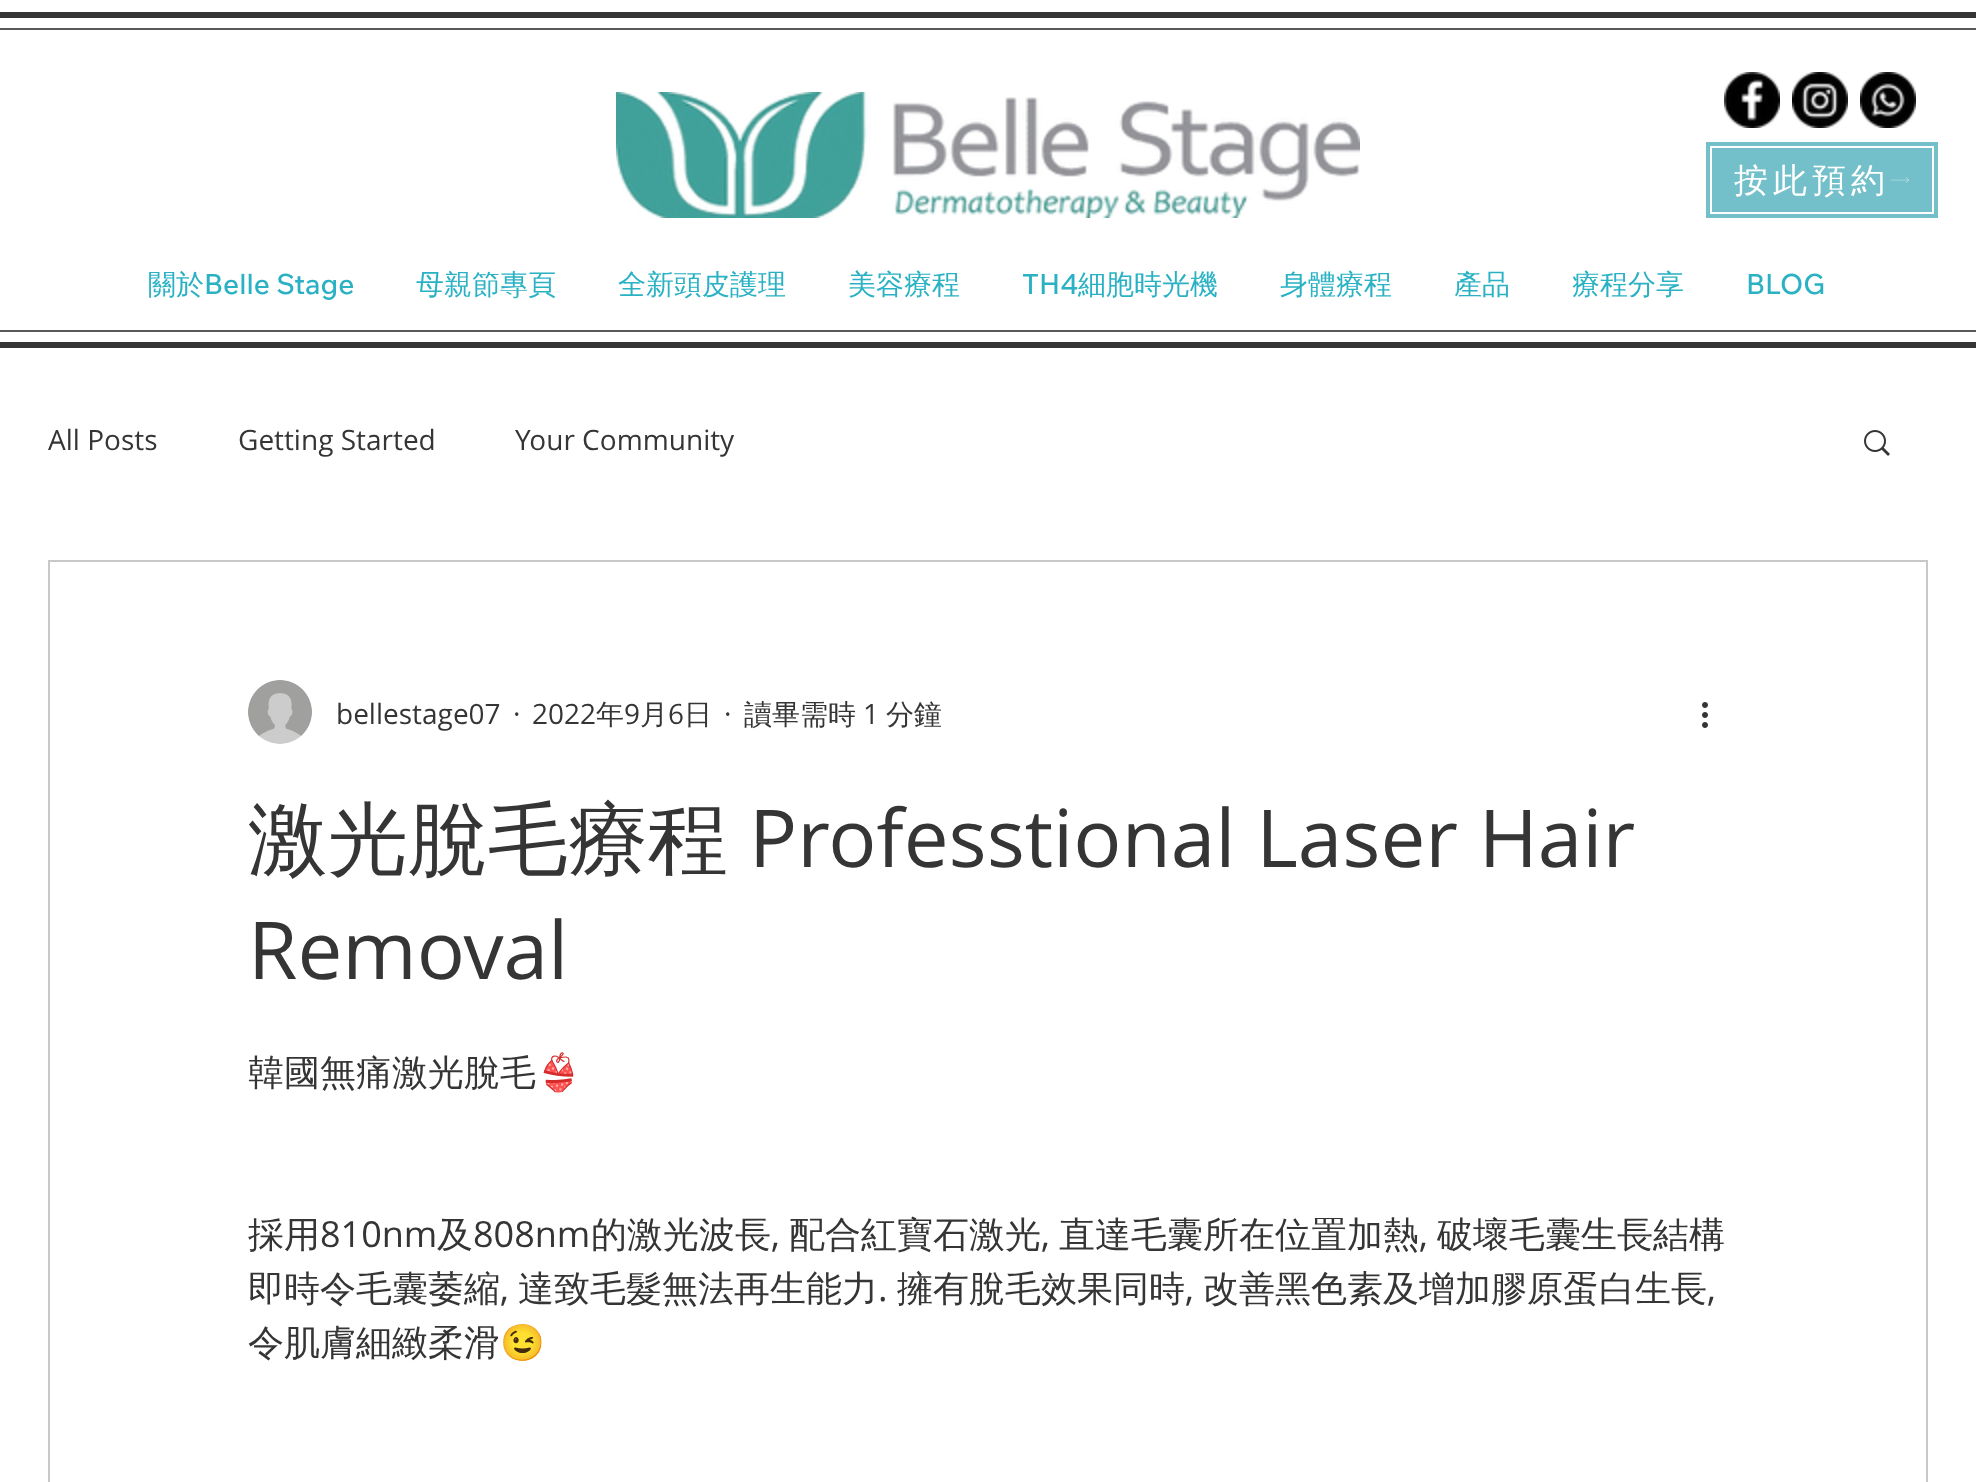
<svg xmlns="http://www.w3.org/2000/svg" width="1976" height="1482">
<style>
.a{font:500 34px WenQuanYi Zen Hei;letter-spacing:5px;fill:#fff}
.b{font:500 28px WenQuanYi Zen Hei;fill:#2ab2c4}
.c{font:500 28px Wix Madefor Text;fill:#2ab2c4}
.d{font:28px Open Sans;fill:#353535}
.e{font:500 28px WenQuanYi Zen Hei;fill:#353535}
.f{font:500 80px WenQuanYi Zen Hei;fill:#353535}
.g{font:80px Open Sans;fill:#353535}
.h{font:500 36px WenQuanYi Zen Hei;fill:#353535}
.i{font:36px Noto Color Emoji;fill:#353535}
.j{font:36px Open Sans;fill:#353535}
</style>
<rect width="100%" height="100%" fill="#fff"/>
<path fill="#353535" d="M0 12h1976v6H0z"/>
<path fill="#353535" d="M0 342h1976v6H0z"/>
<path fill="#585858" d="M0 28h1976v2H0z"/>
<path fill="#585858" d="M0 330h1976v2H0z"/>
<image href="1.png" x="616" y="92" width="744" height="126"/>
<image href="2.png" x="1724" y="72" width="56" height="56"/>
<image href="3.png" x="1792" y="72" width="56" height="56"/>
<image href="4.png" x="1860" y="72" width="56" height="56"/>
<path fill="#73c0ca" d="M1706 142h232v76H1706z"/>
<path fill="none" stroke="#fff" stroke-width="2" d="M1711 147h222v66H1711z"/>
<image href="5.png" x="1891" y="177" width="18" height="6"/>
<image href="6.png" x="1864" y="430" width="26" height="26"/>
<path fill="none" stroke="#c8c8c8" stroke-width="2" d="M49 561h1878v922H49z"/>
<image href="7.png" x="248" y="680" width="64" height="64"/>
<image href="8.png" x="1702" y="702" width="6" height="26"/>
<text class="a" x="1734" y="192">按此預約</text>
<text class="b" x="148" y="294">關於</text>
<text class="c" x="204" y="294">Belle Stage</text>
<text class="b" x="416" y="294">母親節專頁</text>
<text class="b" x="618" y="294">全新頭皮護理</text>
<text class="b" x="848" y="294">美容療程</text>
<text class="c" x="1022" y="294">TH4</text>
<text class="b" x="1078" y="294">細胞時光機</text>
<text class="b" x="1280" y="294">身體療程</text>
<text class="b" x="1454" y="294">產品</text>
<text class="b" x="1572" y="294">療程分享</text>
<text class="c" x="1746" y="294">BLOG</text>
<text class="d" x="48" y="450">All Posts</text>
<text class="d" x="238" y="450">Getting Started</text>
<text class="d" x="515" y="450">Your Community</text>
<text class="d" x="336" y="724">bellestage07</text>
<text class="d" x="513" y="724">·</text>
<text class="d" x="532" y="724">2022</text>
<text class="e" x="596" y="724">年</text>
<text class="d" x="624" y="724">9</text>
<text class="e" x="640" y="724">月</text>
<text class="d" x="668" y="724">6</text>
<text class="e" x="684" y="724">日</text>
<text class="d" x="724" y="724">·</text>
<text class="e" x="744" y="724">讀畢需時</text>
<text class="d" x="863" y="724">1</text>
<text class="e" x="886" y="724">分鐘</text>
<text class="f" x="248" y="867">激光脫毛療程</text>
<text class="g" x="749" y="867">Professtional Laser Hair</text>
<text class="g" x="248" y="979">Removal</text>
<text class="h" x="248" y="1085">韓國無痛激光脫毛</text>
<text class="i" x="536" y="1085">👙</text>
<text class="h" x="248" y="1247">採用</text>
<text class="j" x="320" y="1247">810nm</text>
<text class="h" x="437" y="1247">及</text>
<text class="j" x="473" y="1247">808nm</text>
<text class="h" x="591" y="1247">的激光波長</text>
<text class="j" x="771" y="1247">,</text>
<text class="h" x="789" y="1247">配合紅寶石激光</text>
<text class="j" x="1041" y="1247">,</text>
<text class="h" x="1059" y="1247">直達毛囊所在位置加熱</text>
<text class="j" x="1419" y="1247">,</text>
<text class="h" x="1437" y="1247">破壞毛囊生長結構</text>
<text class="h" x="248" y="1301">即時令毛囊萎縮</text>
<text class="j" x="500" y="1301">,</text>
<text class="h" x="518" y="1301">達致毛髮無法再生能力</text>
<text class="j" x="878" y="1301">.</text>
<text class="h" x="897" y="1301">擁有脫毛效果同時</text>
<text class="j" x="1185" y="1301">,</text>
<text class="h" x="1203" y="1301">改善黑色素及增加膠原蛋白生長</text>
<text class="j" x="1707" y="1301">,</text>
<text class="h" x="248" y="1355">令肌膚細緻柔滑</text>
<text class="i" x="500" y="1355">😉</text>
</svg>
